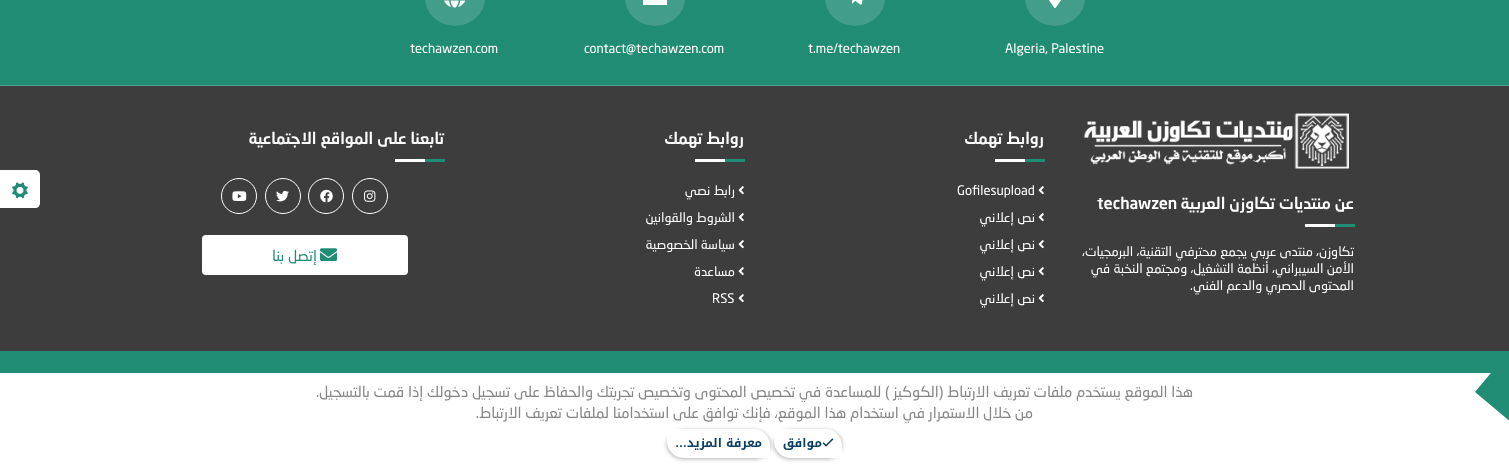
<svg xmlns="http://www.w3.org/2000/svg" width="1509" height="466">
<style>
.a{font:13px 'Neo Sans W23';fill:#fff}
.b{font:500 16px 'Neo Sans W23';direction:rtl;fill:#fff}
.c{font:500 16px 'Neo Sans W23';fill:#fff}
.d{font:13px 'Neo Sans W23';direction:rtl;fill:#fff}
.e{font:15px 'Neo Sans W23';direction:rtl;fill:#218c74}
.f{font:15px 'Neo Sans W23';direction:rtl;fill:#868686}
.g{font:bold 12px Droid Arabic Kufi;direction:rtl;fill:#0a3f63}
.h{font:bold 12px Liberation Sans;direction:rtl;fill:#0a3f63}
</style>
<defs>
<clipPath id="clip1"><path d="M0 373h1509v93H0z"/></clipPath>
</defs>
<rect width="100%" height="100%" fill="#218c74"/>
<path fill="#4da390" d="M0 85h1509v1H0z"/>
<rect fill="#429d89" x="1025" y="-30" width="60" height="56" rx="30"/>
<image href="1.png" x="1049" y="0" width="12" height="8"/>
<rect fill="#429d89" x="825" y="-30" width="60" height="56" rx="30"/>
<image href="2.png" x="851" y="0" width="12" height="5"/>
<rect fill="#429d89" x="625" y="-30" width="60" height="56" rx="30"/>
<path fill="#fff" d="M643 0h24v5H643z"/>
<rect fill="#429d89" x="425" y="-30" width="60" height="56" rx="30"/>
<image href="3.png" x="444" y="0" width="22" height="8"/>
<path fill="#3d3d3d" d="M0 86h1509v265H0z"/>
<image href="4.png" x="1083" y="113" width="266" height="56"/>
<path fill="#218c74" d="M1335 224h20v3H1335z"/>
<path fill="#fff" d="M1305 224h30v3H1305z"/>
<path fill="#218c74" d="M1025 159h20v3H1025z"/>
<path fill="#fff" d="M995 159h30v3H995z"/>
<image href="5.png" x="1038" y="186" width="6" height="9"/>
<image href="5.png" x="1038" y="213" width="6" height="9"/>
<image href="5.png" x="1038" y="240" width="6" height="9"/>
<image href="5.png" x="1038" y="267" width="6" height="9"/>
<image href="5.png" x="1038" y="294" width="6" height="9"/>
<path fill="#218c74" d="M725 159h20v3H725z"/>
<path fill="#fff" d="M695 159h30v3H695z"/>
<image href="5.png" x="738" y="186" width="6" height="9"/>
<image href="5.png" x="738" y="213" width="6" height="9"/>
<image href="5.png" x="738" y="240" width="6" height="9"/>
<image href="5.png" x="738" y="267" width="6" height="9"/>
<image href="5.png" x="738" y="294" width="6" height="9"/>
<path fill="#218c74" d="M425 159h20v3H425z"/>
<path fill="#fff" d="M395 159h30v3H395z"/>
<circle fill="none" stroke="#fff" cx="370" cy="196" r="17.5"/>
<image href="6.png" x="364" y="190" width="12" height="12"/>
<circle fill="none" stroke="#fff" cx="326" cy="196" r="17.5"/>
<image href="7.png" x="320" y="189" width="13" height="14"/>
<circle fill="none" stroke="#fff" cx="283" cy="196" r="17.5"/>
<image href="8.png" x="276" y="190" width="13" height="12"/>
<circle fill="none" stroke="#fff" cx="239" cy="196" r="17.5"/>
<image href="9.png" x="232" y="191" width="15" height="10"/>
<rect fill="#fff" x="202" y="235" width="206" height="40" rx="4"/>
<image href="10.png" x="320" y="248" width="17" height="13"/>
<path fill="#fff" d="M0 170h35c3 0 5 2 5 5v28c0 3-2 5-5 5h-35z"/>
<image href="11.png" x="12" y="182" width="16" height="17"/>
<path fill="#fff" d="M0 373h1509v93H0z"/>
<g clip-path="url(#clip1)">
<path fill="#218c74" d="M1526 331l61 51l-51 61l-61-51z"/>
</g>
<rect fill="#0000004d" filter="blur(2px)" x="774" y="430" width="68" height="29" rx="17"/>
<path fill="#fff" d="M774 429h51c9.5 0 17 7.5 17 17v12h-51c-9.5 0-17-7.5-17-17z"/>
<image href="12.png" x="822" y="438" width="12" height="9"/>
<rect fill="#0000004d" filter="blur(2px)" x="667" y="430" width="103" height="29" rx="17"/>
<path fill="#fff" d="M667 429h86c9.5 0 17 7.5 17 17v12h-86c-9.5 0-17-7.5-17-17z"/>
<text class="a" x="1005" y="53">Algeria, Palestine</text>
<text class="a" x="808" y="53">t.me/techawzen</text>
<text class="a" x="584" y="53">contact@techawzen.com</text>
<text class="a" x="410" y="53">techawzen.com</text>
<text class="b" x="1354" y="209">عن منتديات تكاوزن العربية</text>
<text class="c" x="1097" y="209">techawzen</text>
<text class="d" x="1354" y="256">تكاوزن، منتدى عربي يجمع محترفي التقنية، البرمجيات،</text>
<text class="d" x="1354" y="273">الأمن السيبراني، أنظمة التشغيل، ومجتمع النخبة في</text>
<text class="d" x="1354" y="290">المحتوى الحصري والدعم الفني.</text>
<text class="b" x="1044" y="144">روابط تهمك</text>
<text class="a" x="957" y="195">Gofilesupload</text>
<text class="d" x="1035" y="222">نص إعلاني</text>
<text class="d" x="1035" y="249">نص إعلاني</text>
<text class="d" x="1035" y="276">نص إعلاني</text>
<text class="d" x="1035" y="303">نص إعلاني</text>
<text class="b" x="744" y="144">روابط تهمك</text>
<text class="d" x="735" y="195">رابط نصي</text>
<text class="d" x="735" y="222">الشروط والقوانين</text>
<text class="d" x="735" y="249">سياسة الخصوصية</text>
<text class="d" x="735" y="276">مساعدة</text>
<text class="a" x="712" y="303">RSS</text>
<text class="b" x="444" y="144">تابعنا على المواقع الاجتماعية</text>
<text class="e" x="317" y="261">إتصل بنا</text>
<text class="f" x="1193" y="397">هذا الموقع يستخدم ملفات تعريف الارتباط (الكوكيز ) للمساعدة في تخصيص المحتوى وتخصيص تجربتك والحفاظ على تسجيل دخولك إذا قمت بالتسجيل.</text>
<text class="f" x="1033" y="418">من خلال الاستمرار في استخدام هذا الموقع، فإنك توافق على استخدامنا لملفات تعريف الارتباط.</text>
<text class="g" x="822" y="447">موافق</text>
<text class="g" x="762" y="447">معرفة المزيد</text>
<text class="h" x="687" y="447">…</text>
</svg>
